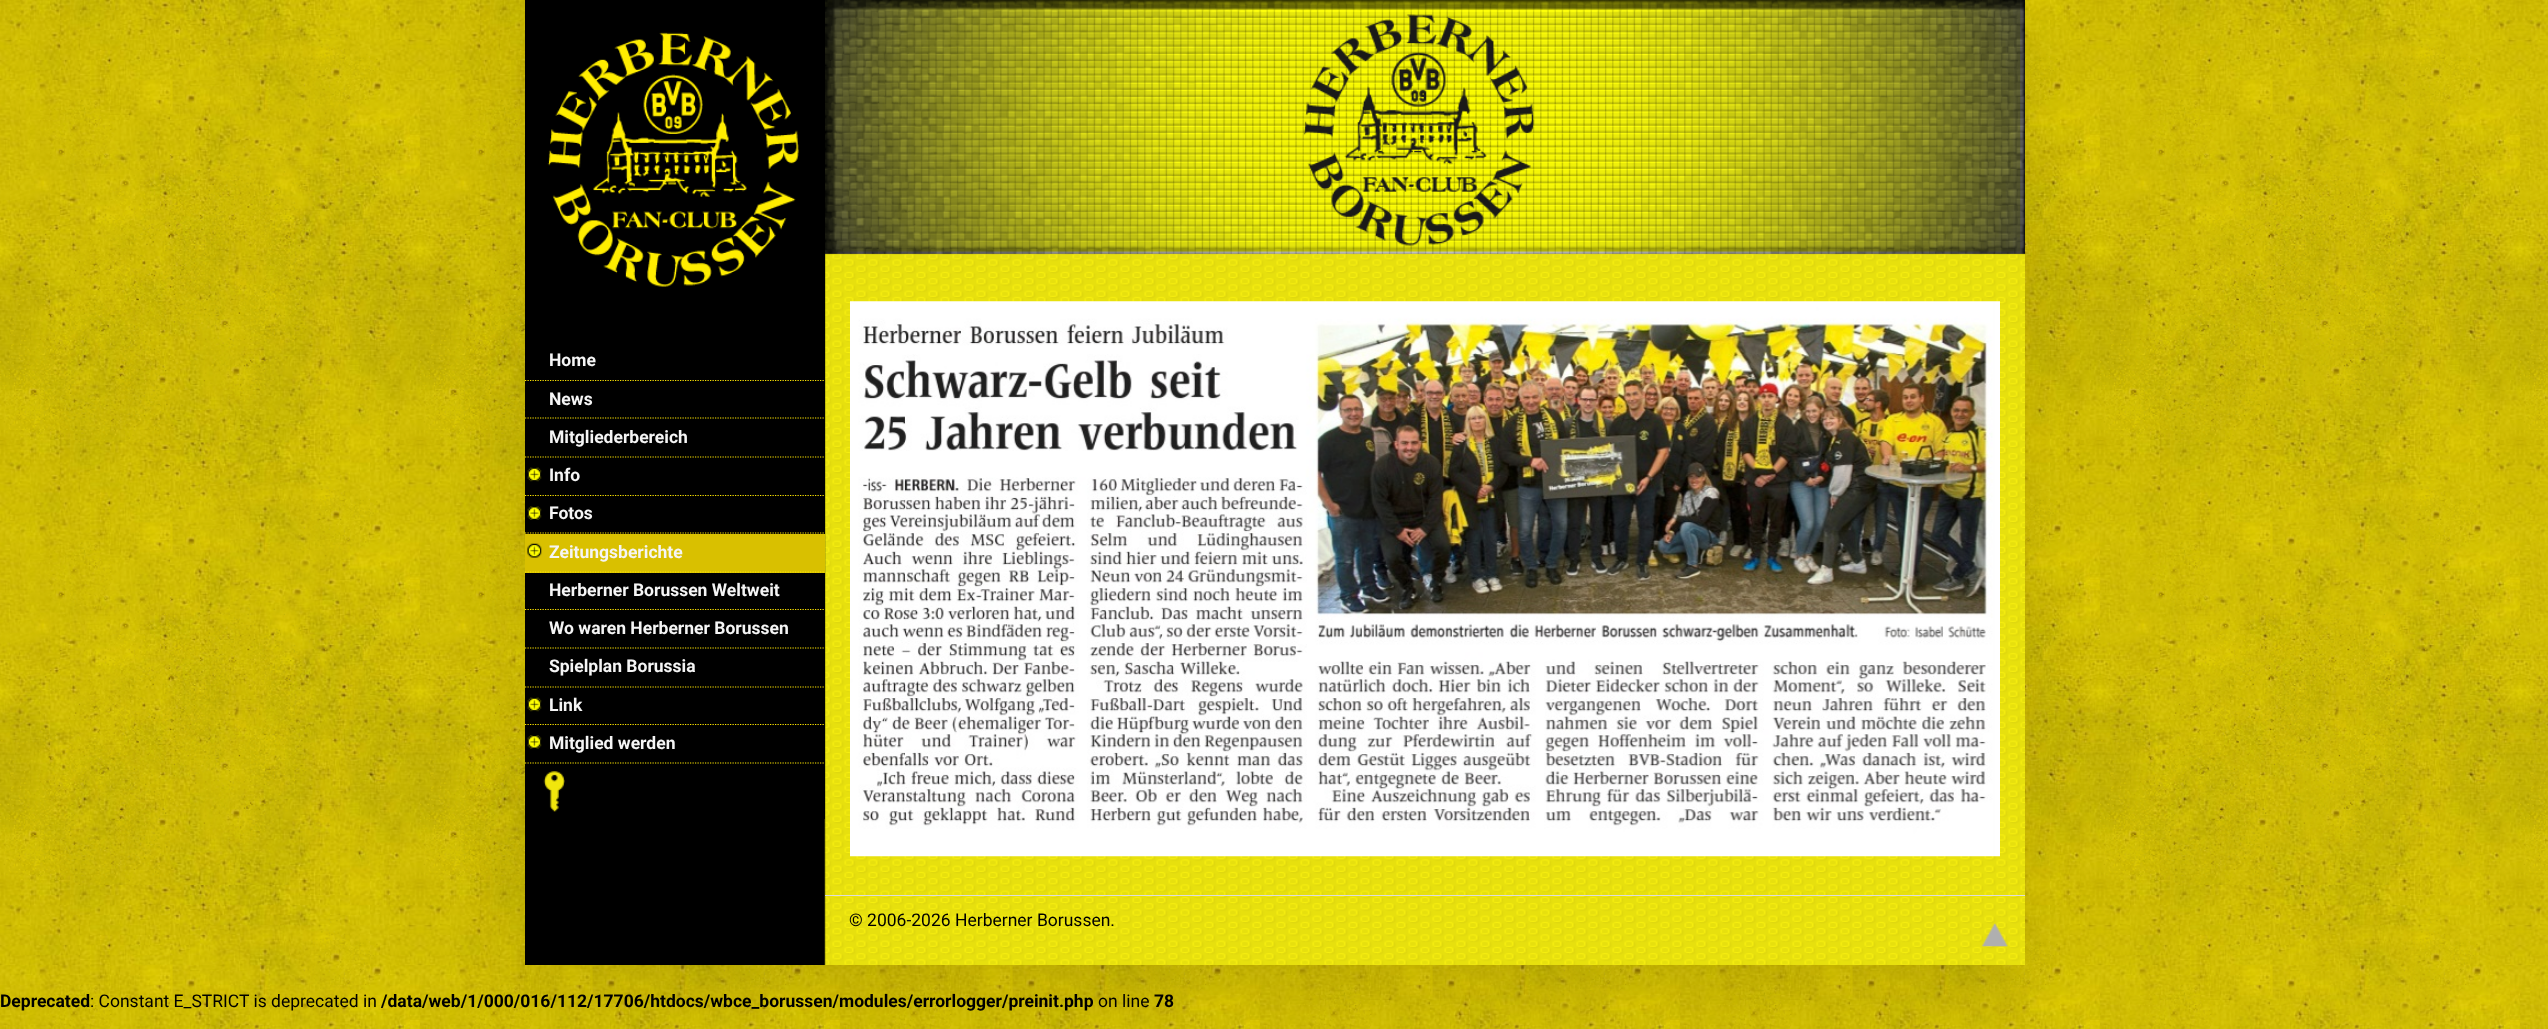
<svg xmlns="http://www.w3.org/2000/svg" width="2548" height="1029">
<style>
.a{font:bold 17.5px Roboto;fill:#f5f5f5}
.b{font:17.5px Roboto;fill:#000}
.c{font:bold 17.5px Roboto;fill:#000}
</style>
<rect width="100%" height="100%" fill="#fff"/>
<image href="1.png" x="0" y="0" width="2548" height="1029"/>
<path fill="#0000001a" filter="blur(31px)" d="M525 25h1500v965H525z"/>
<image href="2.png" x="525" y="253" width="1500" height="712"/>
<path fill="#000" d="M525 0h300v819H525z"/>
<image href="3.png" x="547" y="32" width="252" height="255"/>
<path fill="none" stroke="#ffe600" stroke-width="1.2" stroke-dasharray="1.25 1.25" d="M525 380.5h300"/>
<path fill="none" stroke="#ffe600" stroke-width="1.2" stroke-dasharray="1.25 1.25" d="M525 418h300"/>
<path fill="none" stroke="#ffe600" stroke-width="1.2" stroke-dasharray="1.25 1.25" d="M525 457h300"/>
<image href="4.png" x="527" y="467" width="15" height="15"/>
<path fill="none" stroke="#ffe600" stroke-width="1.2" stroke-dasharray="1.25 1.25" d="M525 495.5h300"/>
<image href="5.png" x="527" y="506" width="15" height="14"/>
<path fill="none" stroke="#ffe600" stroke-width="1.2" stroke-dasharray="1.25 1.25" d="M525 533h300"/>
<path fill="#d9c000" d="M525 534h300v39H525z"/>
<image href="6.png" x="527" y="543" width="15" height="15"/>
<path fill="none" stroke="#ffe600" stroke-width="1.2" stroke-dasharray="1.25 1.25" d="M525 572h300"/>
<path fill="none" stroke="#ffe600" stroke-width="1.2" stroke-dasharray="1.25 1.25" d="M525 609.5h300"/>
<path fill="none" stroke="#ffe600" stroke-width="1.2" stroke-dasharray="1.25 1.25" d="M525 648h300"/>
<path fill="none" stroke="#ffe600" stroke-width="1.2" stroke-dasharray="1.25 1.25" d="M525 687h300"/>
<image href="4.png" x="527" y="697" width="15" height="15"/>
<path fill="none" stroke="#ffe600" stroke-width="1.2" stroke-dasharray="1.25 1.25" d="M525 724.5h300"/>
<image href="7.png" x="527" y="735" width="15" height="14"/>
<path fill="none" stroke="#ffe600" stroke-width="1.2" stroke-dasharray="1.25 1.25" d="M525 763h300"/>
<image href="8.png" x="543" y="771" width="22" height="41"/>
<image href="9.png" x="825" y="0" width="1200" height="255"/>
<image href="10.png" x="850" y="301" width="1150" height="556"/>
<path fill="#ddd" d="M825 895h1200v1H825z"/>
<image href="11.png" x="1981" y="923" width="27" height="24"/>
<text class="a" x="549" y="366">Home</text>
<text class="a" x="549" y="405">News</text>
<text class="a" x="549" y="443">Mitgliederbereich</text>
<text class="a" x="549" y="481">Info</text>
<text class="a" x="549" y="519">Fotos</text>
<text class="a" x="549" y="558">Zeitungsberichte</text>
<text class="a" x="549" y="596">Herberner Borussen Weltweit</text>
<text class="a" x="549" y="634">Wo waren Herberner Borussen</text>
<text class="a" x="549" y="672">Spielplan Borussia</text>
<text class="a" x="549" y="711">Link</text>
<text class="a" x="549" y="749">Mitglied werden</text>
<text class="b" x="849" y="926">© 2006-2026 Herberner Borussen.</text>
<text class="c" x="0" y="1007">Deprecated</text>
<text class="b" x="90" y="1007">: Constant E_STRICT is deprecated in</text>
<text class="c" x="381" y="1007">/data/web/1/000/016/112/17706/htdocs/wbce_borussen/modules/errorlogger/preinit.php</text>
<text class="b" x="1098" y="1007">on line</text>
<text class="c" x="1154" y="1007">78</text>
</svg>
